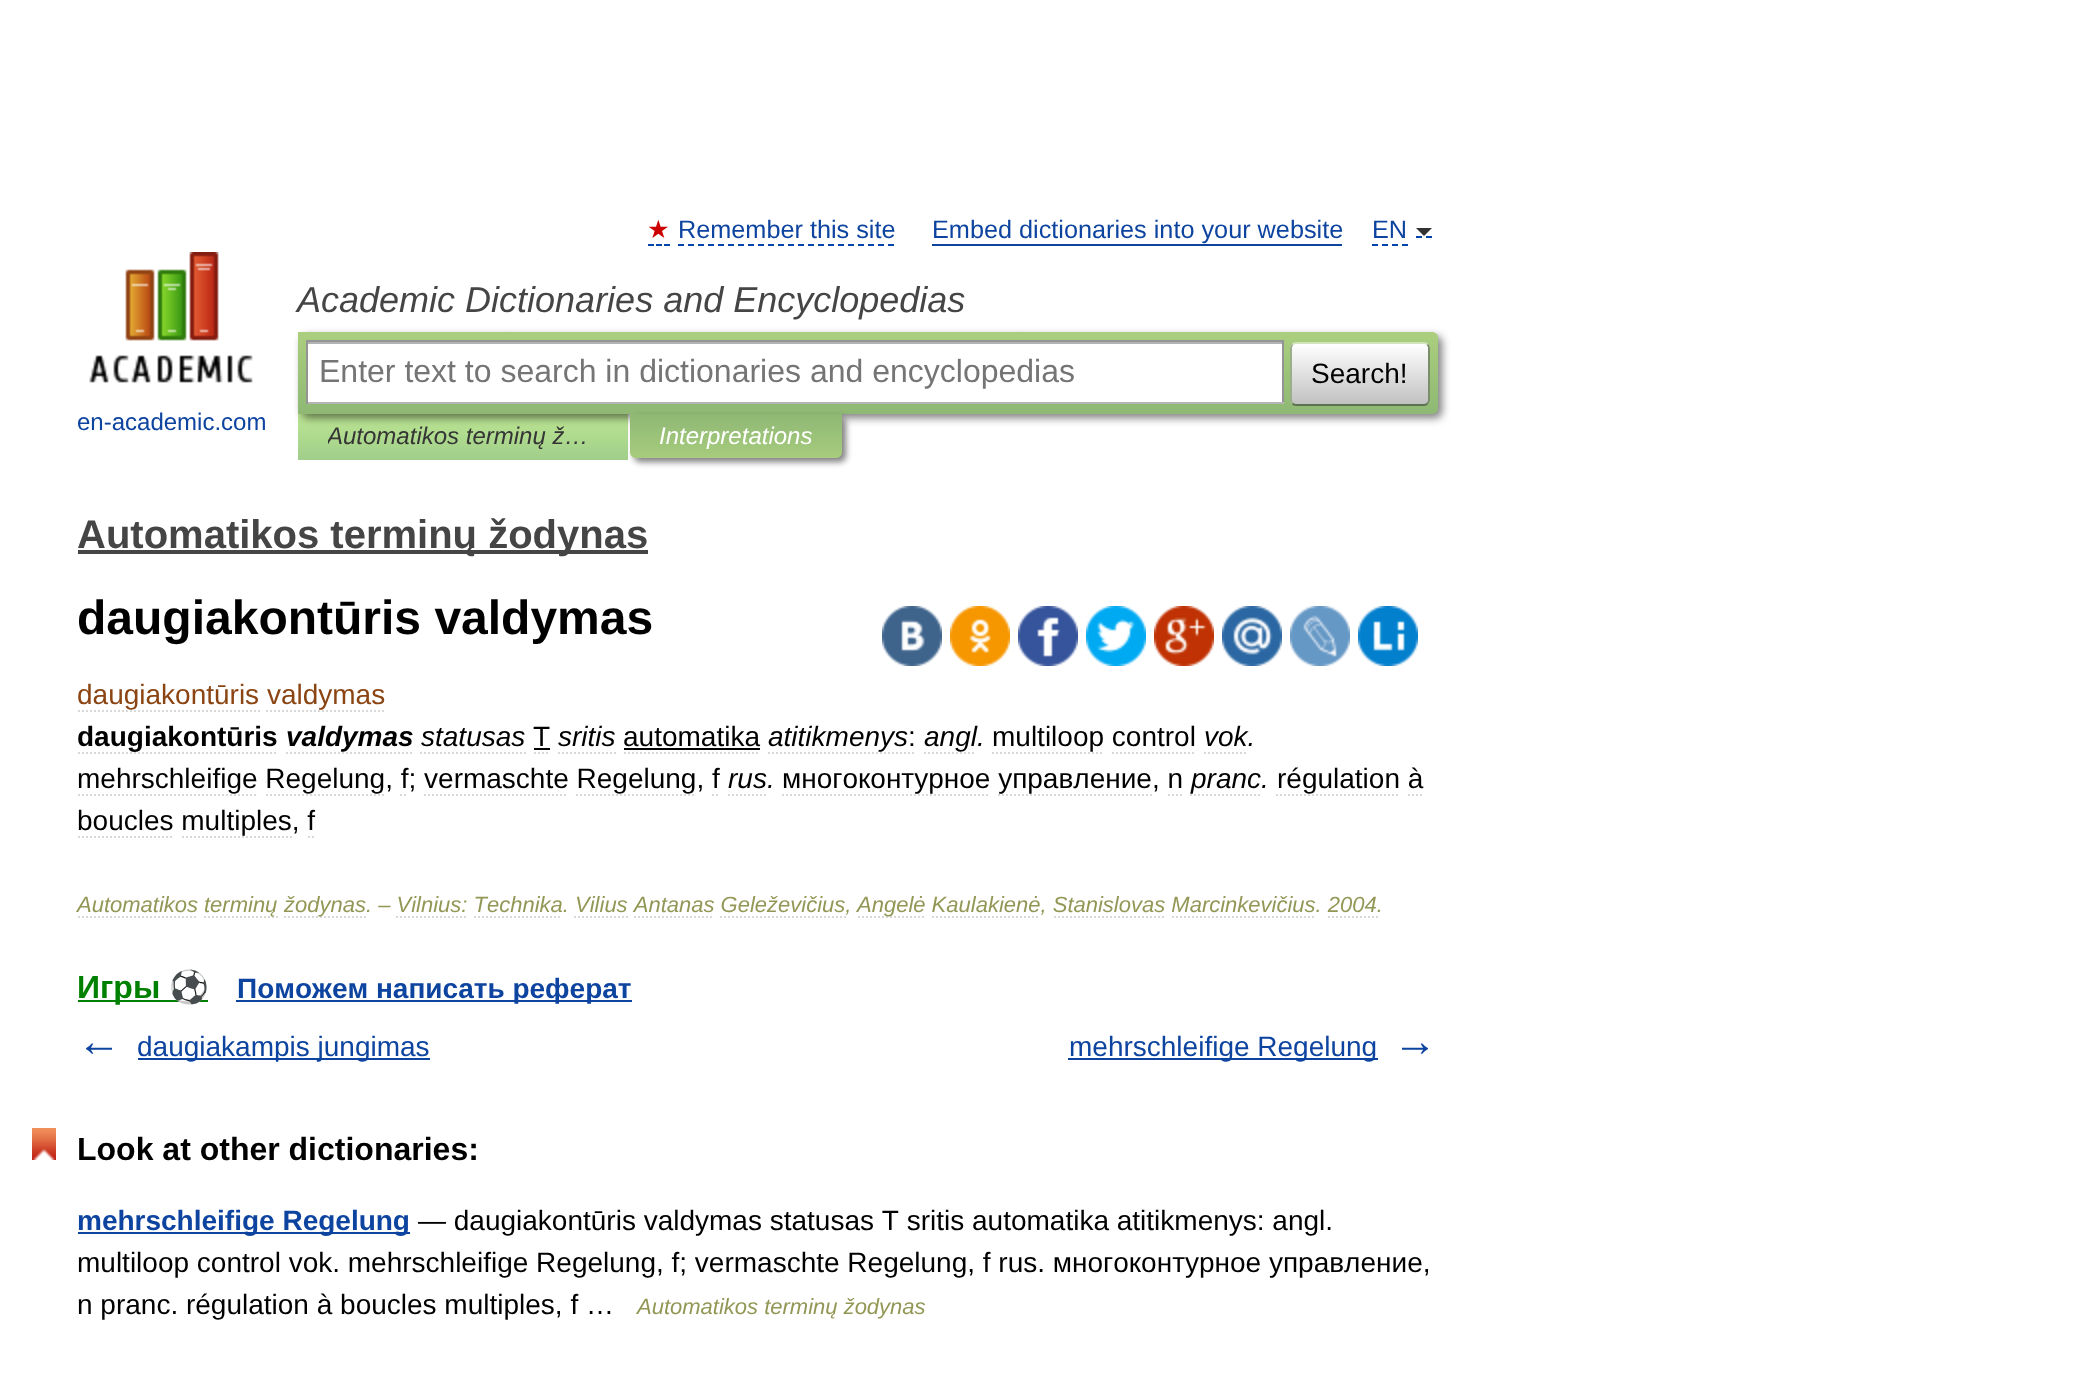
<svg xmlns="http://www.w3.org/2000/svg" width="2094" height="1373">
<style>*{font-kerning:none!important;font-variant-ligatures:none!important}</style>
<style>
.a{font:25.25px DejaVu Sans;fill:#c00}
.b{font:25.25px Liberation Sans;fill:#0d44a0}
.c{font:italic 36px Liberation Sans;fill:#454545}
.d{font:32px Liberation Sans;fill:#757575}
.e{font:28px Liberation Sans;fill:#000}
.f{font:24px Liberation Sans;fill:#0d44a0}
.g{font:italic 24px Liberation Sans;fill:#353535}
.h{font:italic 24px Liberation Sans;fill:#fff}
.i{font:bold 40px Liberation Sans;fill:#454545}
.j{font:bold 48px Liberation Sans;fill:#000}
.k{font:28px Liberation Sans;fill:#8b4513}
.l{font:bold 28px Liberation Sans;fill:#000}
.m{font:italic bold 28px Liberation Sans;fill:#000}
.n{font:italic 28px Liberation Sans;fill:#000}
.o{font:italic 22px Liberation Sans;fill:#939756}
.p{font:bold 32px Liberation Sans;fill:#008000}
.q{font:bold 32px Noto Color Emoji;fill:#008000}
.r{font:bold 28px Liberation Sans;fill:#0d44a0}
.s{font:bold 44px Liberation Sans;fill:#0d44a0}
.t{font:28px Liberation Sans;fill:#0d44a0}
.u{font:bold 32px Liberation Sans;fill:#000}
</style>
<defs>
<linearGradient id="g1" gradientUnits="userSpaceOnUse" x1="463" y1="414" x2="463" y2="460"><stop offset="0" stop-color="#bde693"/><stop offset="1" stop-color="#a0ce8a"/></linearGradient>
<linearGradient id="g2" gradientUnits="userSpaceOnUse" x1="868" y1="332" x2="868" y2="414"><stop offset="0" stop-color="#abcf7e"/><stop offset="1" stop-color="#8eb874"/></linearGradient>
<clipPath id="clip1"><rect x="1290" y="342" width="140" height="64" rx="6"/></clipPath>
<linearGradient id="g3" gradientUnits="userSpaceOnUse" x1="1360" y1="344" x2="1360" y2="404"><stop offset="0" stop-color="#fff"/><stop offset="1" stop-color="#c1c1c1"/></linearGradient>
<linearGradient id="g4" gradientUnits="userSpaceOnUse" x1="736" y1="414" x2="736" y2="458"><stop offset="0" stop-color="#8fb875"/><stop offset="1" stop-color="#a7cc7d"/></linearGradient>
<clipPath id="clip2"><path d="M328 414h270v46H328z"/></clipPath>
</defs>
<rect width="100%" height="100%" fill="#fff"/>
<path fill="none" stroke="#04a" stroke-width="2" d="M648 245h6m2 0h6m2 0h6"/>
<path fill="none" stroke="#04a" stroke-width="2" stroke-dasharray="6 4" d="M678 245h216"/>
<path fill="#0d44a0" d="M932 244h410v2H932z"/>
<path fill="none" stroke="#04a" stroke-width="2" stroke-dasharray="6 4" d="M1372 245h36"/>
<path fill="none" stroke="#04a" stroke-width="2" d="M1416 237h6m4 0h6"/>
<path fill="#333" d="M1416 228h16l-8 8z"/>
<path fill="url(#g1)" d="M298 414h330v46H298z"/>
<rect fill="#00000080" filter="blur(4px)" x="302" y="336" width="1140" height="82" rx="6"/>
<path fill="url(#g2)" d="M298 332h1134c3.5 0 6 2.5 6 6v70c0 3.5-2.5 6-6 6h-1134z"/>
<path fill="#fff" d="M308 344h974v58H308z"/>
<path fill="#b3b3b3" d="M308 342h974v2H308z"/>
<path fill="#949494" d="M306 340h978v2H306z"/>
<path fill="#949494" d="M1282 340h2v64H1282z"/>
<path fill="#b4b4b4" d="M306 402h978v2H306z"/>
<path fill="#949494" d="M306 340h2v64H306z"/>
<g clip-path="url(#clip1)">
<path fill="url(#g3)" d="M1290 344h140v60H1290z"/>
</g>
<path fill="none" stroke="#d1e4bc" stroke-width="2" d="M1292.5 344.5c1-1 2-1.5 3.5-1.5h128c1.5 0 2.5 .5 3.5 1.5"/>
<path fill="none" stroke="#7a8e69" stroke-width="2" d="M1427.5 344.5c1 1 1.5 2 1.5 3.5v52c0 1.5-.5 2.5-1.5 3.5"/>
<path fill="none" stroke="#5d7250" stroke-width="2" d="M1427.5 403.5c-1 1-2 1.5-3.5 1.5h-128c-1.5 0-2.5-.5-3.5-1.5"/>
<path fill="none" stroke="#9aae89" stroke-width="2" d="M1292.5 403.5c-1-1-1.5-2-1.5-3.5v-52c0-1.5 .5-2.5 1.5-3.5"/>
<image href="1.png" x="89" y="252" width="164" height="131"/>
<rect fill="#00000080" filter="blur(3px)" x="634" y="418" width="212" height="44" rx="6"/>
<path fill="url(#g4)" d="M630 414h212v38c0 3.5-2.5 6-6 6h-200c-3.5 0-6-2.5-6-6z"/>
<path fill="#454545" d="M78 550h570v4H78z"/>
<image href="2.png" x="882" y="606" width="60" height="60"/>
<image href="3.png" x="950" y="606" width="60" height="60"/>
<image href="4.png" x="1018" y="606" width="60" height="60"/>
<image href="5.png" x="1086" y="606" width="60" height="60"/>
<image href="6.png" x="1154" y="606" width="60" height="60"/>
<image href="7.png" x="1222" y="606" width="60" height="60"/>
<image href="8.png" x="1290" y="606" width="60" height="60"/>
<image href="9.png" x="1358" y="606" width="60" height="60"/>
<path fill="none" stroke="#d9d9d9" stroke-width="2" stroke-dasharray="2 2" d="M78 711h182"/>
<path fill="none" stroke="#d9d9d9" stroke-width="2" stroke-dasharray="2 2" d="M266 711h120"/>
<path fill="none" stroke="#d9d9d9" stroke-width="2" stroke-dasharray="2 2" d="M78 753h200"/>
<path fill="none" stroke="#d9d9d9" stroke-width="2" stroke-dasharray="2 2" d="M286 753h128"/>
<path fill="none" stroke="#d9d9d9" stroke-width="2" stroke-dasharray="2 2" d="M420 753h106"/>
<path fill="none" stroke="#d9d9d9" stroke-width="2" stroke-dasharray="2 2" d="M534 753h16"/>
<path fill="#000" d="M534 748h16v2H534z"/>
<path fill="none" stroke="#d9d9d9" stroke-width="2" stroke-dasharray="2 2" d="M558 753h58"/>
<path fill="none" stroke="#d9d9d9" stroke-width="2" stroke-dasharray="2 2" d="M624 753h136"/>
<path fill="#000" d="M624 748h136v2H624z"/>
<path fill="none" stroke="#d9d9d9" stroke-width="2" stroke-dasharray="2 2" d="M768 753h140"/>
<path fill="none" stroke="#d9d9d9" stroke-width="2" d="M908 753h2m2 0h2"/>
<path fill="none" stroke="#d9d9d9" stroke-width="2" stroke-dasharray="2 2" d="M924 753h52"/>
<path fill="none" stroke="#d9d9d9" stroke-width="2" stroke-dasharray="2 2" d="M992 753h112"/>
<path fill="none" stroke="#d9d9d9" stroke-width="2" stroke-dasharray="2 2" d="M1204 753h44"/>
<path fill="none" stroke="#d9d9d9" stroke-width="2" stroke-dasharray="2 2" d="M1112 753h84"/>
<path fill="none" stroke="#d9d9d9" stroke-width="2" stroke-dasharray="2 2" d="M78 795h180"/>
<path fill="none" stroke="#d9d9d9" stroke-width="2" stroke-dasharray="2 2" d="M728 795h38"/>
<path fill="none" stroke="#d9d9d9" stroke-width="2" stroke-dasharray="2 2" d="M782 795h208"/>
<path fill="none" stroke="#d9d9d9" stroke-width="2" stroke-dasharray="2 2" d="M1190 795h72"/>
<path fill="none" stroke="#d9d9d9" stroke-width="2" stroke-dasharray="2 2" d="M1276 795h124"/>
<path fill="none" stroke="#d9d9d9" stroke-width="2" stroke-dasharray="2 2" d="M266 795h120"/>
<path fill="none" stroke="#d9d9d9" stroke-width="2" d="M400 795h2m2 0h2"/>
<path fill="none" stroke="#d9d9d9" stroke-width="2" stroke-dasharray="2 2" d="M424 795h144"/>
<path fill="none" stroke="#d9d9d9" stroke-width="2" stroke-dasharray="2 2" d="M576 795h120"/>
<path fill="none" stroke="#d9d9d9" stroke-width="2" d="M712 795h2m2 0h2"/>
<path fill="none" stroke="#d9d9d9" stroke-width="2" stroke-dasharray="2 2" d="M998 795h154"/>
<path fill="none" stroke="#d9d9d9" stroke-width="2" stroke-dasharray="2 2" d="M1168 795h16"/>
<path fill="none" stroke="#d9d9d9" stroke-width="2" d="M1408 795h2m2 0h2m2 0h2m2 0h2"/>
<path fill="none" stroke="#d9d9d9" stroke-width="2" stroke-dasharray="2 2" d="M78 837h96"/>
<path fill="none" stroke="#d9d9d9" stroke-width="2" stroke-dasharray="2 2" d="M182 837h110"/>
<path fill="none" stroke="#d9d9d9" stroke-width="2" d="M308 837h2m2 0h2"/>
<path fill="none" stroke="#d9d9d9" stroke-width="2" stroke-dasharray="2 2" d="M78 917h120"/>
<path fill="none" stroke="#d9d9d9" stroke-width="2" stroke-dasharray="2 2" d="M204 917h74"/>
<path fill="none" stroke="#d9d9d9" stroke-width="2" stroke-dasharray="2 2" d="M284 917h82"/>
<path fill="none" stroke="#d9d9d9" stroke-width="2" stroke-dasharray="2 2" d="M858 917h68"/>
<path fill="#008000" d="M78 1000h130v2H78z"/>
<path fill="#0d44a0" d="M236 1000h396v2H236z"/>
<path fill="#0d44a0" d="M138 1058h292v2H138z"/>
<path fill="#0d44a0" d="M1068 1058h310v2H1068z"/>
<image href="10.png" x="32" y="1128" width="24" height="32"/>
<path fill="#0d44a0" d="M78 1232h332v2H78z"/>
<text class="a" x="647" y="238">★</text>
<text class="b" x="678" y="238">Remember this site</text>
<text class="b" x="932" y="238">Embed dictionaries into your website</text>
<text class="b" x="1372" y="238">EN</text>
<text class="c" x="297" y="312">Academic Dictionaries and Encyclopedias</text>
<text class="d" x="319" y="382">Enter text to search in dictionaries and encyclopedias</text>
<text class="e" x="1311" y="383">Search!</text>
<text class="f" x="77" y="430">en-academic.com</text>
<g clip-path="url(#clip2)">
<text class="g" x="327" y="444">Automatikos terminų ž…</text>
</g>
<text class="h" x="659" y="444">Interpretations</text>
<text class="i" x="77" y="548">Automatikos terminų žodynas</text>
<text class="j" x="77" y="634">daugiakontūris valdymas</text>
<text class="k" x="77" y="704">daugiakontūris valdymas</text>
<text class="l" x="77" y="746">daugiakontūris</text>
<text class="m" x="286" y="746">valdymas</text>
<text class="n" x="421" y="746">statusas</text>
<text class="e" x="533" y="746">T</text>
<text class="n" x="558" y="746">sritis</text>
<text class="e" x="623" y="746">automatika</text>
<text class="n" x="768" y="746">atitikmenys</text>
<text class="e" x="908" y="746">:</text>
<text class="n" x="924" y="746">angl.</text>
<text class="e" x="992" y="746">multiloop control</text>
<text class="n" x="1204" y="746">vok.</text>
<text class="e" x="77" y="788">mehrschleifige Regelung, f; vermaschte Regelung, f</text>
<text class="n" x="728" y="788">rus.</text>
<text class="e" x="782" y="788">многоконтурное управление, n</text>
<text class="n" x="1191" y="788">pranc.</text>
<text class="e" x="1277" y="788">régulation à</text>
<text class="e" x="77" y="830">boucles multiples, f</text>
<text class="o" x="77" y="912">Automatikos</text>
<text class="o" x="204" y="912">terminų</text>
<text class="o" x="284" y="912">žodynas. – Vilnius: Technika. Vilius Antanas Geleževičius,</text>
<path fill="none" stroke="#d9d9d9" stroke-width="2" stroke-dasharray="2 2" d="M396 917h72"/>
<path fill="none" stroke="#d9d9d9" stroke-width="2" stroke-dasharray="2 2" d="M474 917h88"/>
<path fill="none" stroke="#d9d9d9" stroke-width="2" stroke-dasharray="2 2" d="M574 917h54"/>
<path fill="none" stroke="#d9d9d9" stroke-width="2" stroke-dasharray="2 2" d="M634 917h80"/>
<path fill="none" stroke="#d9d9d9" stroke-width="2" stroke-dasharray="2 2" d="M720 917h126"/>
<text class="o" x="857" y="912">Angelė Kaulakienė, Stanislovas Marcinkevičius. 2004.</text>
<path fill="none" stroke="#d9d9d9" stroke-width="2" stroke-dasharray="2 2" d="M932 917h108"/>
<path fill="none" stroke="#d9d9d9" stroke-width="2" stroke-dasharray="2 2" d="M1054 917h112"/>
<path fill="none" stroke="#d9d9d9" stroke-width="2" stroke-dasharray="2 2" d="M1172 917h144"/>
<path fill="none" stroke="#d9d9d9" stroke-width="2" stroke-dasharray="2 2" d="M1328 917h50"/>
<text class="p" x="77" y="998">Игры</text>
<text class="q" x="169" y="998">⚽</text>
<text class="r" x="237" y="998">Поможем написать реферат</text>
<text class="s" x="77" y="1056">←</text>
<text class="t" x="137" y="1056">daugiakampis jungimas</text>
<text class="t" x="1069" y="1056">mehrschleifige Regelung</text>
<text class="s" x="1393" y="1056">→</text>
<text class="u" x="77" y="1160">Look at other dictionaries:</text>
<text class="r" x="77" y="1230">mehrschleifige Regelung</text>
<text class="e" x="418" y="1230">— daugiakontūris valdymas statusas T sritis automatika atitikmenys: angl.</text>
<text class="e" x="77" y="1272">multiloop control vok. mehrschleifige Regelung, f; vermaschte Regelung, f rus. многоконтурное управление,</text>
<text class="e" x="77" y="1314">n pranc. régulation à boucles multiples, f …</text>
<text class="o" x="637" y="1314">Automatikos terminų žodynas</text>
</svg>
